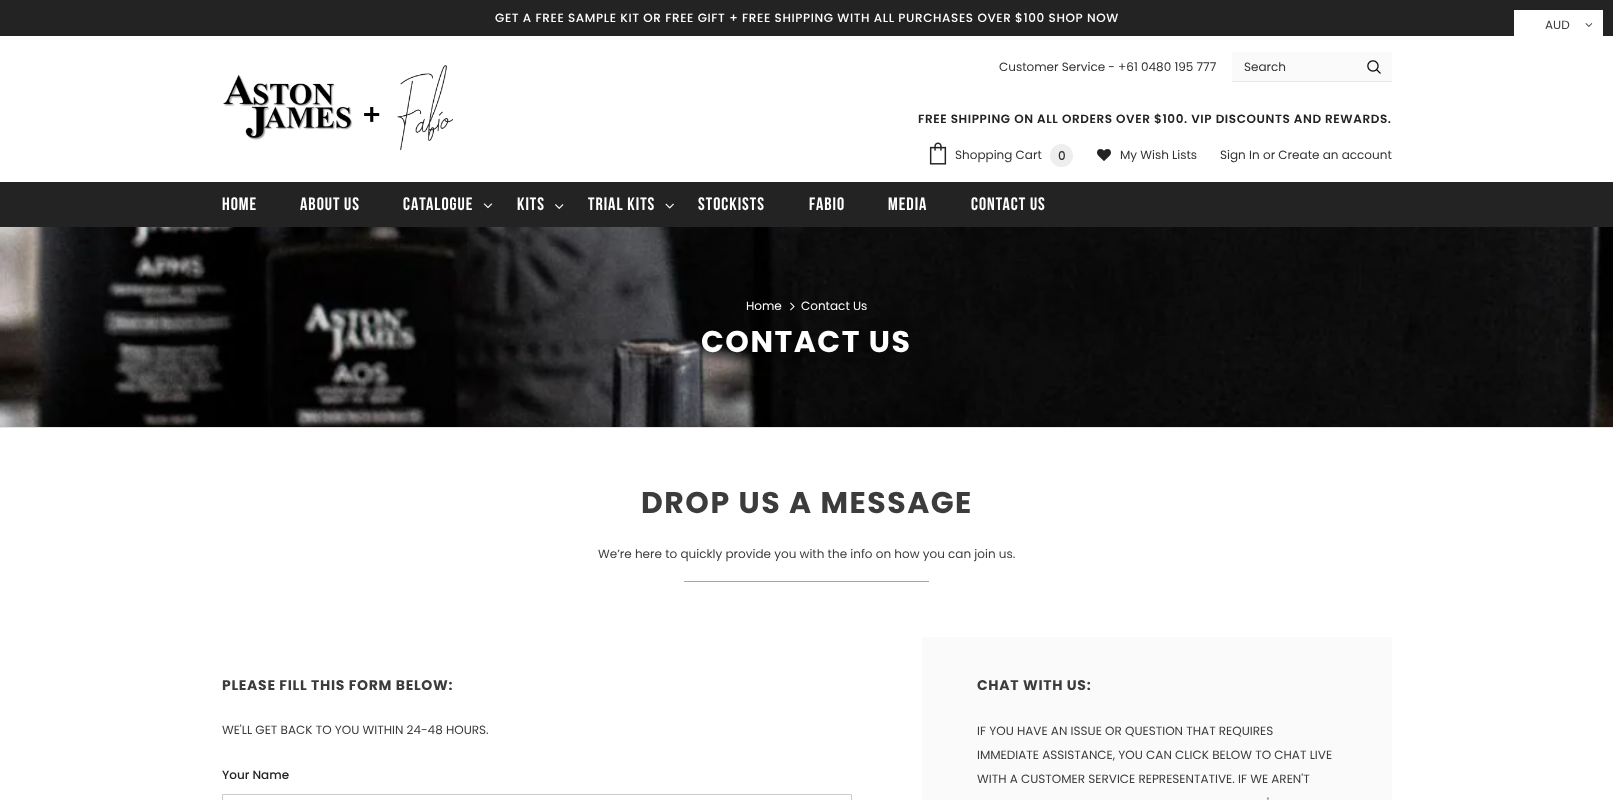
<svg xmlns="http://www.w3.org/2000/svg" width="1613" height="800">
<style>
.a{font:500 12px Poppins;letter-spacing:0.6px;fill:#fff}
.b{font:12px Poppins;fill:#323232}
.c{font:600 12px Poppins;letter-spacing:0.6px;fill:#232323}
.d{font:500 12px Poppins;fill:#323232}
.e{font:bold 18px Bebas Neue;letter-spacing:1px;fill:#fff}
.f{font:12px Poppins;fill:#3c3c3c}
.g{font:12px Poppins;fill:#fff}
.h{font:bold 30px Poppins;letter-spacing:1.5px;fill:#fff}
.i{font:bold 30px Poppins;letter-spacing:1.5px;fill:#3c3c3c}
.j{font:bold 14px Poppins;letter-spacing:0.7px;fill:#3c3c3c}
.k{font:500 12px Poppins;fill:#232323}
</style>
<rect width="100%" height="100%" fill="#fff"/>
<path fill="#232323" d="M0 0h1613v36H0z"/>
<path fill="#fafafa" d="M1232 52h160v29H1232z"/>
<path fill="#e7e7e7" d="M1232 81h160v1H1232z"/>
<image href="1.png" x="1367" y="60" width="14" height="14"/>
<image href="2.png" x="223" y="65" width="230" height="86"/>
<image href="3.png" x="929" y="142" width="18" height="23"/>
<circle fill="#eee" cx="1061.5" cy="155.5" r="11.5"/>
<image href="4.png" x="1097" y="149" width="14" height="12"/>
<path fill="#232323" d="M0 182h1613v45H0z"/>
<image href="5.png" x="483" y="203" width="10" height="6"/>
<image href="6.png" x="555" y="204" width="9" height="5"/>
<image href="7.png" x="665" y="203" width="9" height="6"/>
<path fill="#fff" d="M1514 10h89v26H1514z"/>
<image href="8.png" x="1585" y="23" width="8" height="4"/>
<image href="9.png" x="0" y="227" width="1613" height="200"/>
<image href="10.png" x="790" y="302" width="5" height="9"/>
<path fill="#e6e6e6" d="M0 427h1613v1H0z"/>
<path fill="#a6a6a6" d="M684 581h245v1H684z"/>
<path fill="none" stroke="#cbcbcb" d="M222.5 794.5h629v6H222.5z"/>
<path fill="#fafafa" d="M922 637h470v163H922z"/>
<text class="a" x="495" y="22">GET A FREE SAMPLE KIT OR FREE GIFT + FREE SHIPPING WITH ALL PURCHASES OVER $100 SHOP NOW</text>
<text class="b" x="999" y="71">Customer Service - +61 0480 195 777</text>
<text class="b" x="1244" y="71">Search</text>
<text class="c" x="918" y="123">FREE SHIPPING ON ALL ORDERS OVER $100. VIP DISCOUNTS AND REWARDS.</text>
<text class="b" x="955" y="159">Shopping Cart</text>
<text class="d" x="1058" y="160">0</text>
<text class="b" x="1120" y="159">My Wish Lists</text>
<text class="b" x="1220" y="159">Sign In</text>
<text class="b" x="1263" y="159">or Create an account</text>
<text class="e" x="222" y="210">HOME</text>
<text class="e" x="300" y="210">ABOUT US</text>
<text class="e" x="403" y="210">CATALOGUE</text>
<text class="e" x="517" y="210">KITS</text>
<text class="e" x="588" y="210">TRIAL KITS</text>
<text class="e" x="698" y="210">STOCKISTS</text>
<text class="e" x="809" y="210">FABIO</text>
<text class="e" x="888" y="210">MEDIA</text>
<text class="e" x="971" y="210">CONTACT US</text>
<text class="f" x="1545" y="29">AUD</text>
<text class="g" x="746" y="310">Home</text>
<text class="g" x="801" y="310">Contact Us</text>
<text class="h" x="701" y="352">CONTACT US</text>
<text class="i" x="641" y="513">DROP US A MESSAGE</text>
<text class="f" x="598" y="558">We’re here to quickly provide you with the info on how you can join us.</text>
<text class="j" x="222" y="690">PLEASE FILL THIS FORM BELOW:</text>
<text class="f" x="222" y="734">WE'LL GET BACK TO YOU WITHIN 24-48 HOURS.</text>
<text class="k" x="222" y="779">Your Name</text>
<text class="j" x="977" y="690">CHAT WITH US:</text>
<text class="f" x="977" y="735">IF YOU HAVE AN ISSUE OR QUESTION THAT REQUIRES</text>
<text class="f" x="977" y="759">IMMEDIATE ASSISTANCE, YOU CAN CLICK BELOW TO CHAT LIVE</text>
<text class="f" x="977" y="783">WITH A CUSTOMER SERVICE REPRESENTATIVE. IF WE AREN'T</text>
<text class="f" x="1267" y="807">'</text>
</svg>
